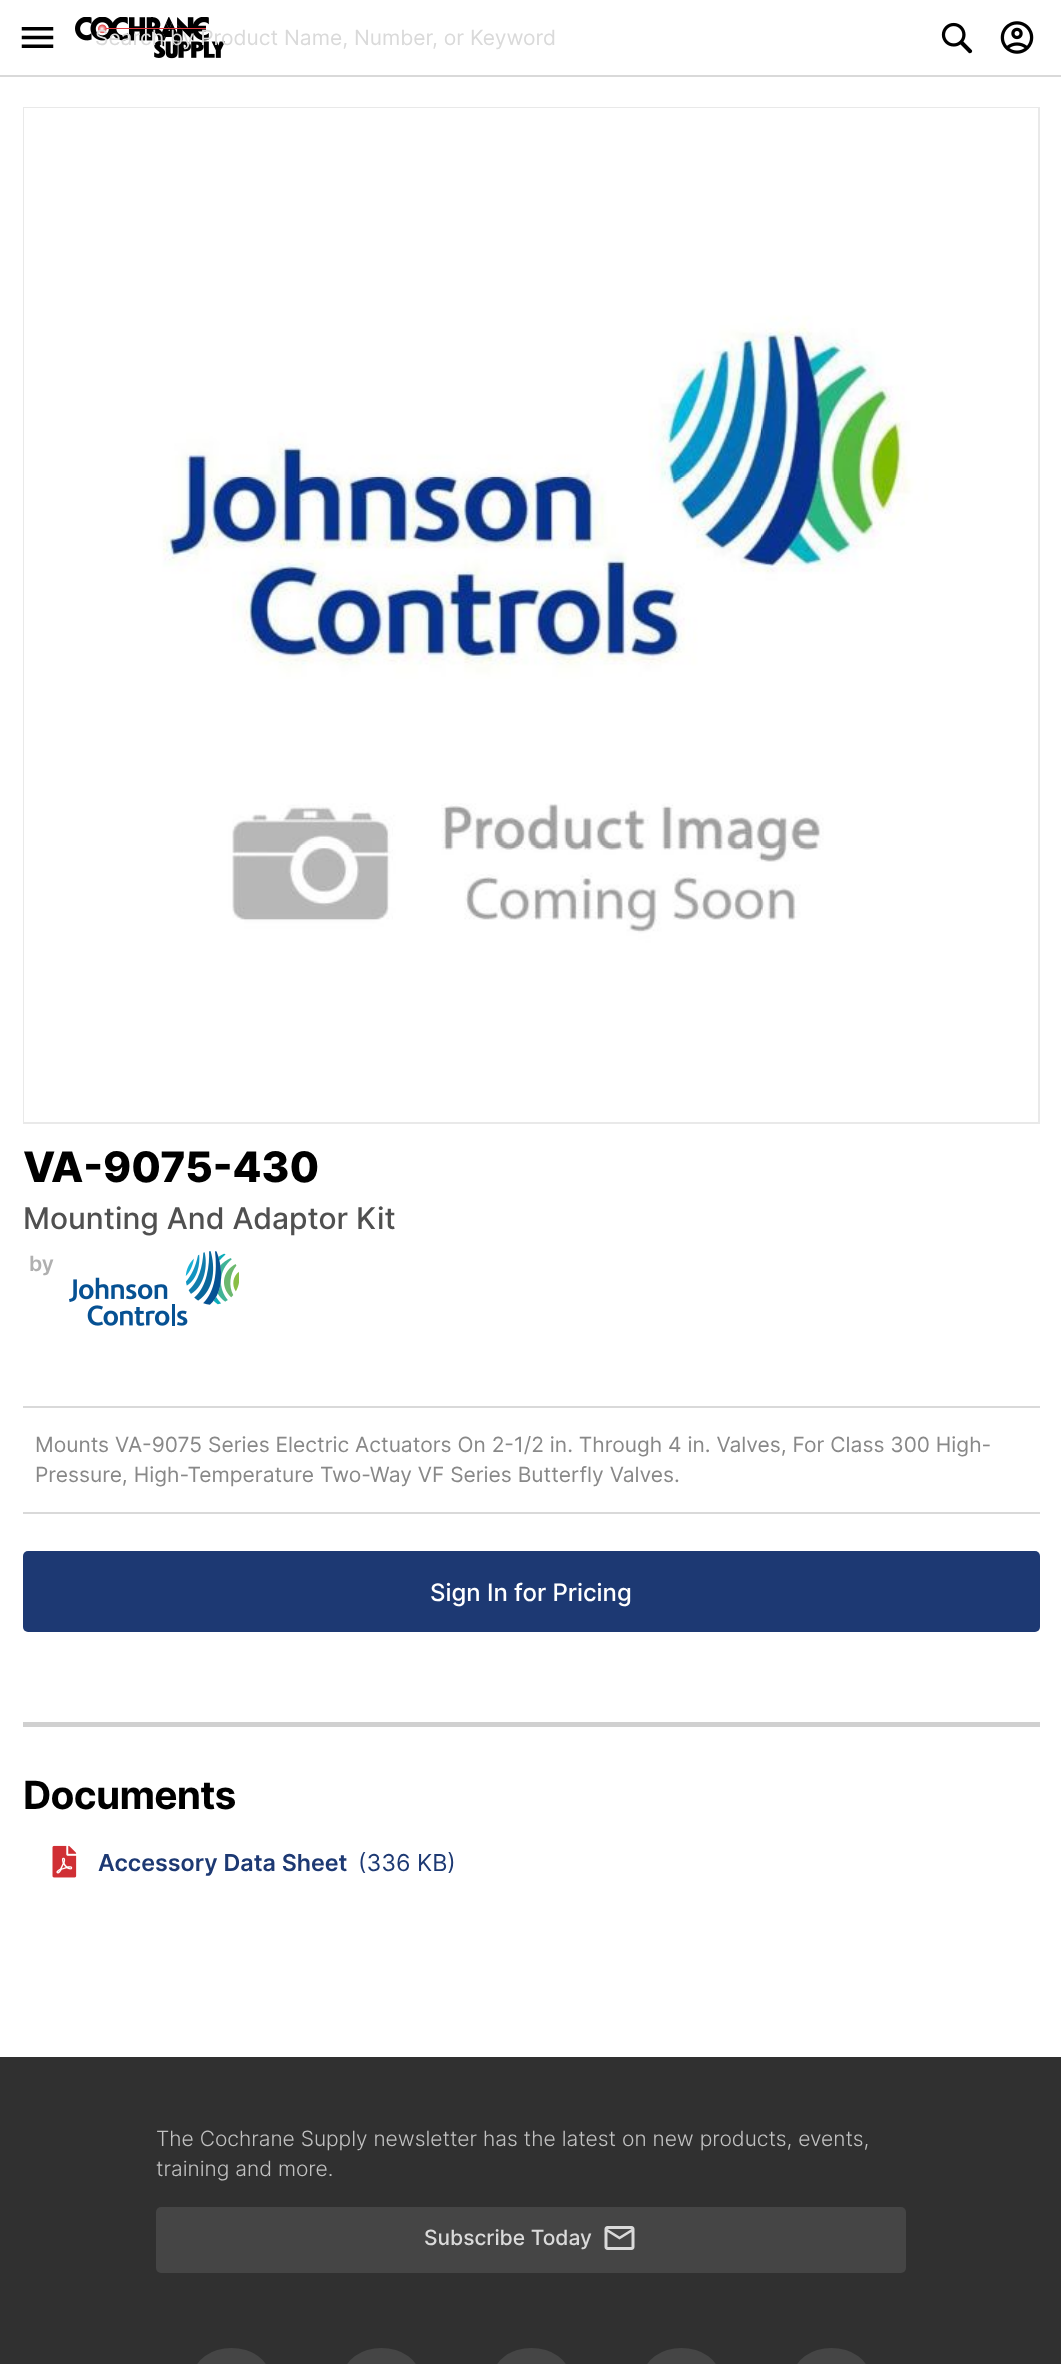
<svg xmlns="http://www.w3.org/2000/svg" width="1061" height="2364">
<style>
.a{font:21px Inter;fill:#dadada}
.b{font:800 42px Inter;fill:#000}
.c{font:500 30px Inter;fill:#505050}
.d{font:600 21px Inter;fill:#b0b0b0}
.e{font:21px Inter;fill:#888}
.f{font:500 24px Inter;fill:#fff}
.g{font:bold 39px Inter;letter-spacing:-0.75px;fill:#000}
.h{font:600 23.25px Inter;fill:#1d3973}
.i{font:23.25px Inter;fill:#1d3973}
.j{font:300 21px Inter;fill:#c1c1c1}
.k{font:500 21px Inter;fill:#dadada}
</style>
<rect width="100%" height="100%" fill="#fff"/>
<path fill="#d9d9d9" d="M0 75h1061v2H0z"/>
<image href="1.png" x="21" y="27" width="33" height="21"/>
<image href="2.png" x="75" y="17" width="150" height="42"/>
<image href="3.png" x="941" y="22" width="32" height="32"/>
<image href="4.png" x="1000" y="21" width="34" height="33"/>
<path fill="none" stroke="#e9e9e9" stroke-width="2" d="M24 108h1015v1015H24z"/>
<image href="5.png" x="24" y="108" width="1014" height="1014"/>
<image href="6.png" x="69" y="1251" width="170" height="75"/>
<path fill="#d9d9d9" d="M23 1406h1017v2H23z"/>
<path fill="#d9d9d9" d="M23 1512h1017v2H23z"/>
<rect fill="#1d3973" x="23" y="1551" width="1017" height="81" rx="5"/>
<path fill="#d0d0d0" d="M23 1722h1017v5H23z"/>
<image href="7.png" x="52" y="1845" width="25" height="33"/>
<path fill="#303030" d="M0 2057h1061v307H0z"/>
<rect fill="#454545" x="156" y="2207" width="750" height="66" rx="5"/>
<image href="8.png" x="604" y="2226" width="31" height="24"/>
<rect fill="#454545" x="194" y="2348" width="75" height="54" rx="37.5"/>
<rect fill="#454545" x="344" y="2348" width="75" height="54" rx="37.5"/>
<rect fill="#454545" x="494" y="2348" width="75" height="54" rx="37.5"/>
<rect fill="#454545" x="644" y="2348" width="75" height="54" rx="37.5"/>
<rect fill="#454545" x="794" y="2348" width="75" height="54" rx="37.5"/>
<text class="a" x="95" y="45">Search by Product Name, Number, or Keyword</text>
<text class="b" x="23" y="1182">VA-9075-430</text>
<text class="c" x="23" y="1229">Mounting And Adaptor Kit</text>
<text class="d" x="29" y="1271">by</text>
<text class="e" x="35" y="1452">Mounts VA-9075 Series Electric Actuators On 2-1/2 in. Through 4 in. Valves, For Class 300 High-</text>
<text class="e" x="35" y="1482">Pressure, High-Temperature Two-Way VF Series Butterfly Valves.</text>
<text class="f" x="430" y="1601">Sign In for Pricing</text>
<text class="g" x="23" y="1809">Documents</text>
<text class="h" x="98" y="1871">Accessory Data Sheet</text>
<text class="i" x="358" y="1871">(336 KB)</text>
<text class="j" x="156" y="2146">The Cochrane Supply newsletter has the latest on new products, events,</text>
<text class="j" x="156" y="2176">training and more.</text>
<text class="k" x="424" y="2245">Subscribe Today</text>
</svg>
